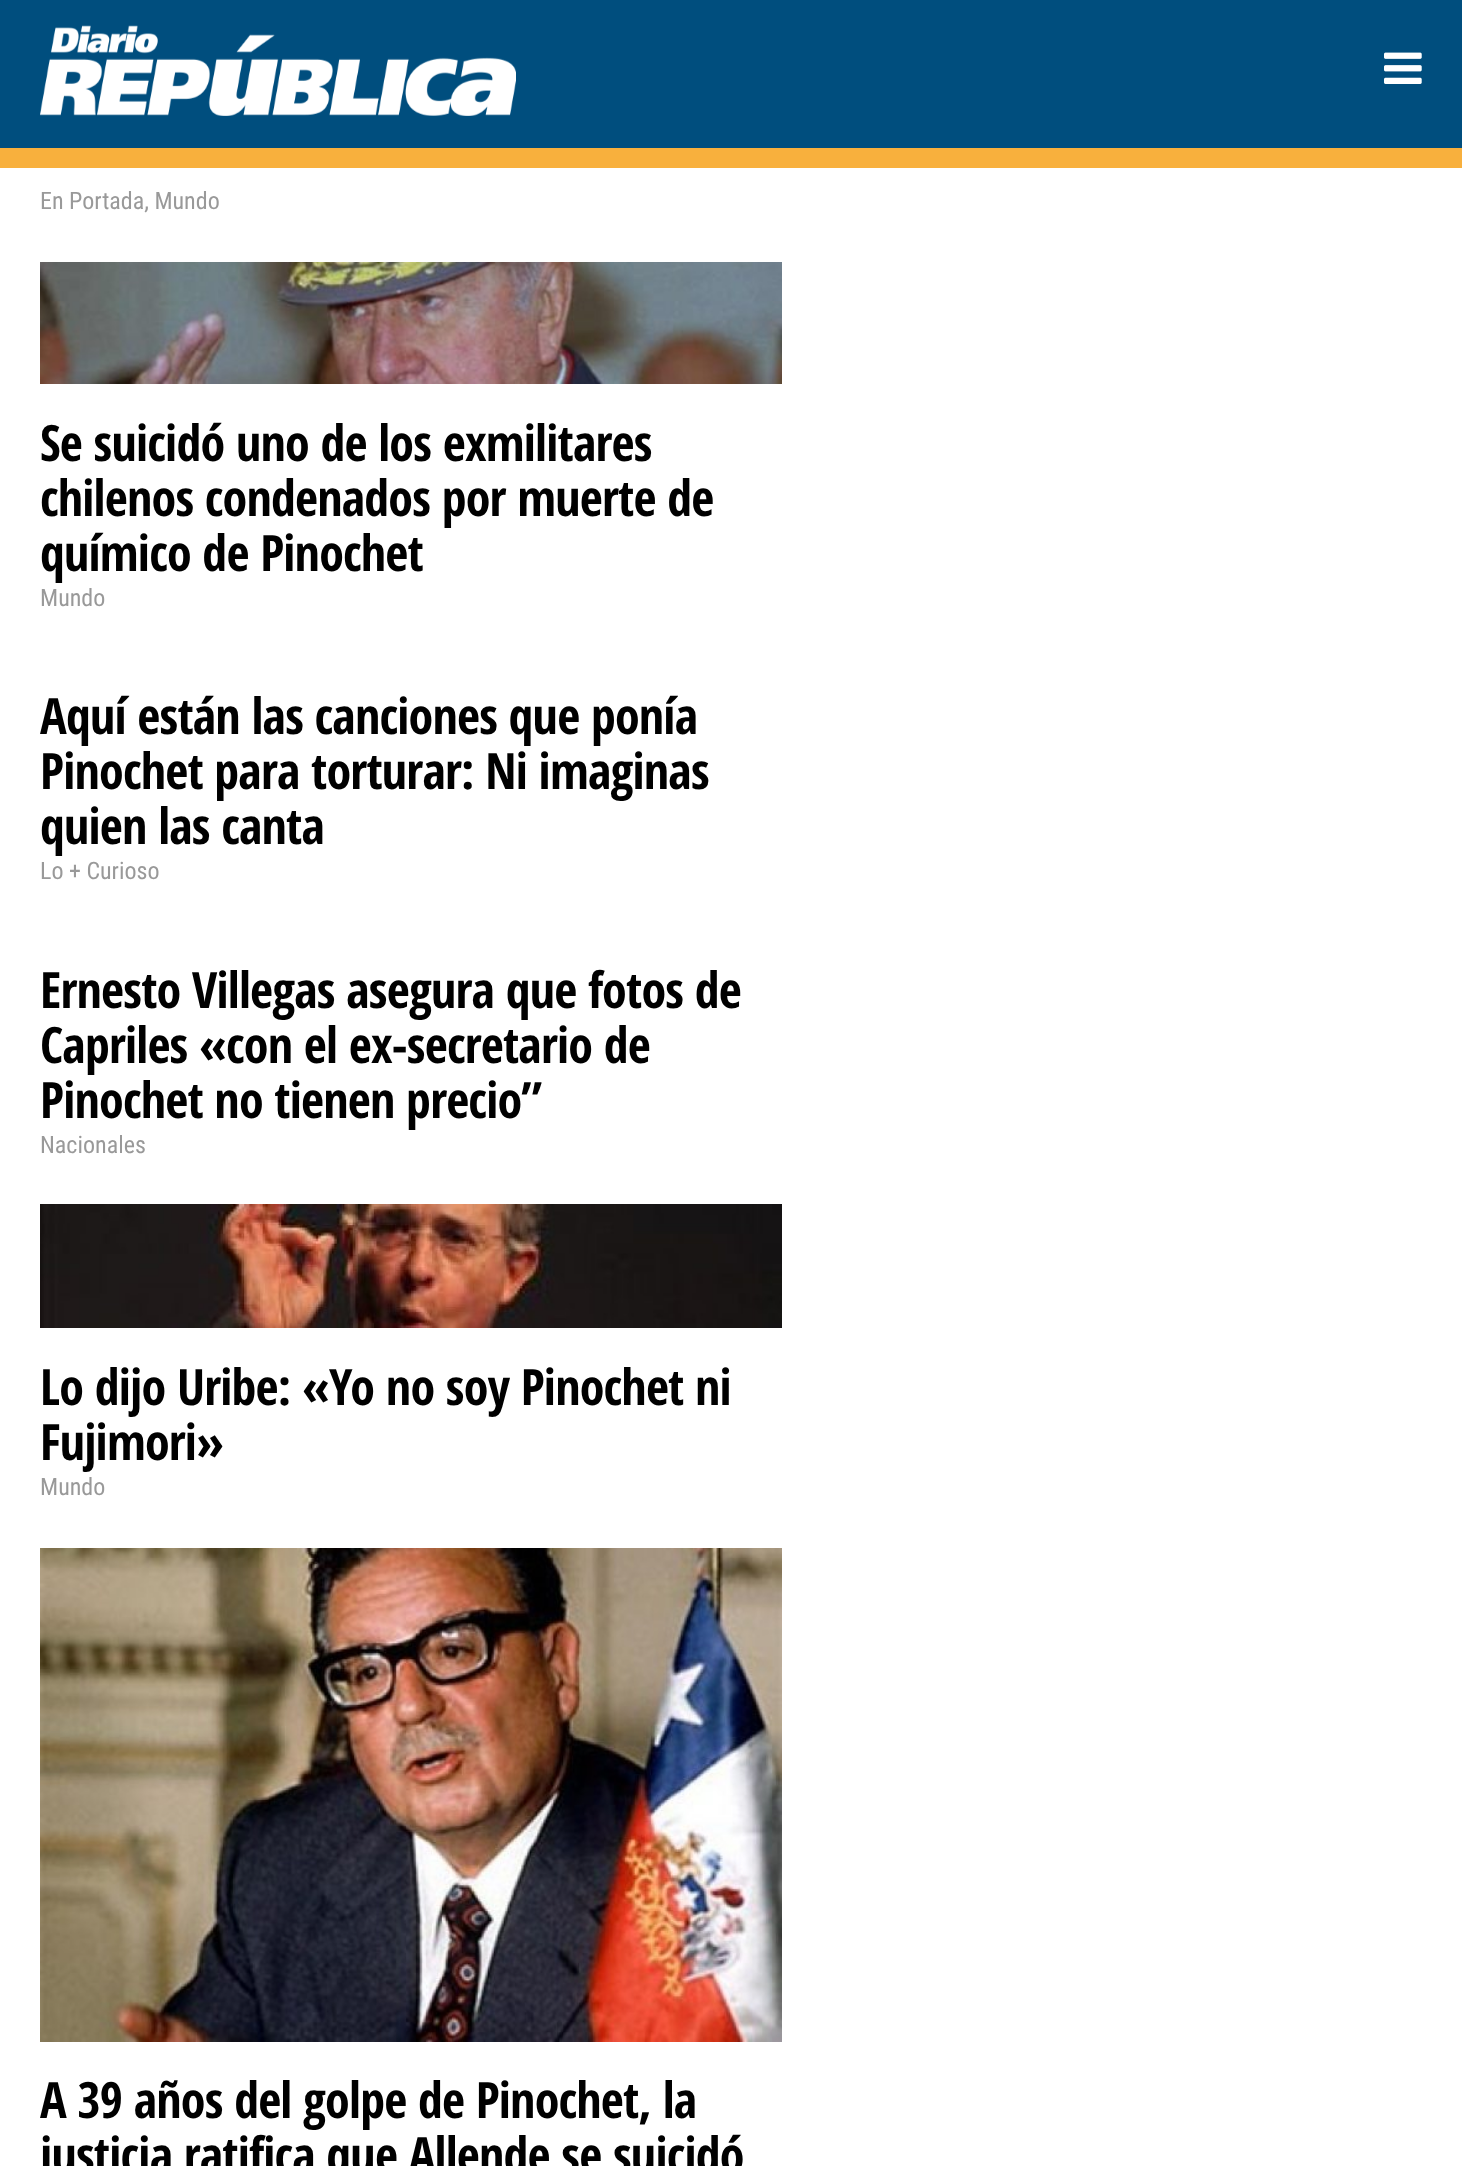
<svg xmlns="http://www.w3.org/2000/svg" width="1462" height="2166">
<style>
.a{font:24px Roboto Condensed;fill:#999}
.b{font:bold 50px Open Sans Condensed;letter-spacing:-0.8px;fill:#000}
</style>
<rect width="100%" height="100%" fill="#fff"/>
<path fill="#004e7e" d="M0 0h1462v148H0z"/>
<path fill="#f8b03d" d="M0 148h1462v20H0z"/>
<image href="1.png" x="40" y="25" width="476" height="91"/>
<image href="2.png" x="1384" y="52" width="38" height="32"/>
<image href="3.png" x="40" y="262" width="742" height="122"/>
<image href="4.png" x="40" y="1204" width="742" height="124"/>
<image href="5.png" x="40" y="1548" width="742" height="494"/>
<text class="a" x="40" y="209">En Portada, Mundo</text>
<text class="b" x="40" y="461">Se suicidó uno de los exmilitares</text>
<text class="b" x="40" y="516">chilenos condenados por muerte de</text>
<text class="b" x="40" y="571">químico de Pinochet</text>
<text class="a" x="40" y="606">Mundo</text>
<text class="b" x="40" y="734">Aquí están las canciones que ponía</text>
<text class="b" x="40" y="789">Pinochet para torturar: Ni imaginas</text>
<text class="b" x="40" y="844">quien las canta</text>
<text class="a" x="40" y="879">Lo + Curioso</text>
<text class="b" x="40" y="1008">Ernesto Villegas asegura que fotos de</text>
<text class="b" x="40" y="1063">Capriles «con el ex-secretario de</text>
<text class="b" x="40" y="1118">Pinochet no tienen precio”</text>
<text class="a" x="40" y="1153">Nacionales</text>
<text class="b" x="40" y="1405">Lo dijo Uribe: «Yo no soy Pinochet ni</text>
<text class="b" x="40" y="1460">Fujimori»</text>
<text class="a" x="40" y="1495">Mundo</text>
<text class="b" x="40" y="2118">A 39 años del golpe de Pinochet, la</text>
<text class="b" x="40" y="2173">justicia ratifica que Allende se suicidó</text>
</svg>
